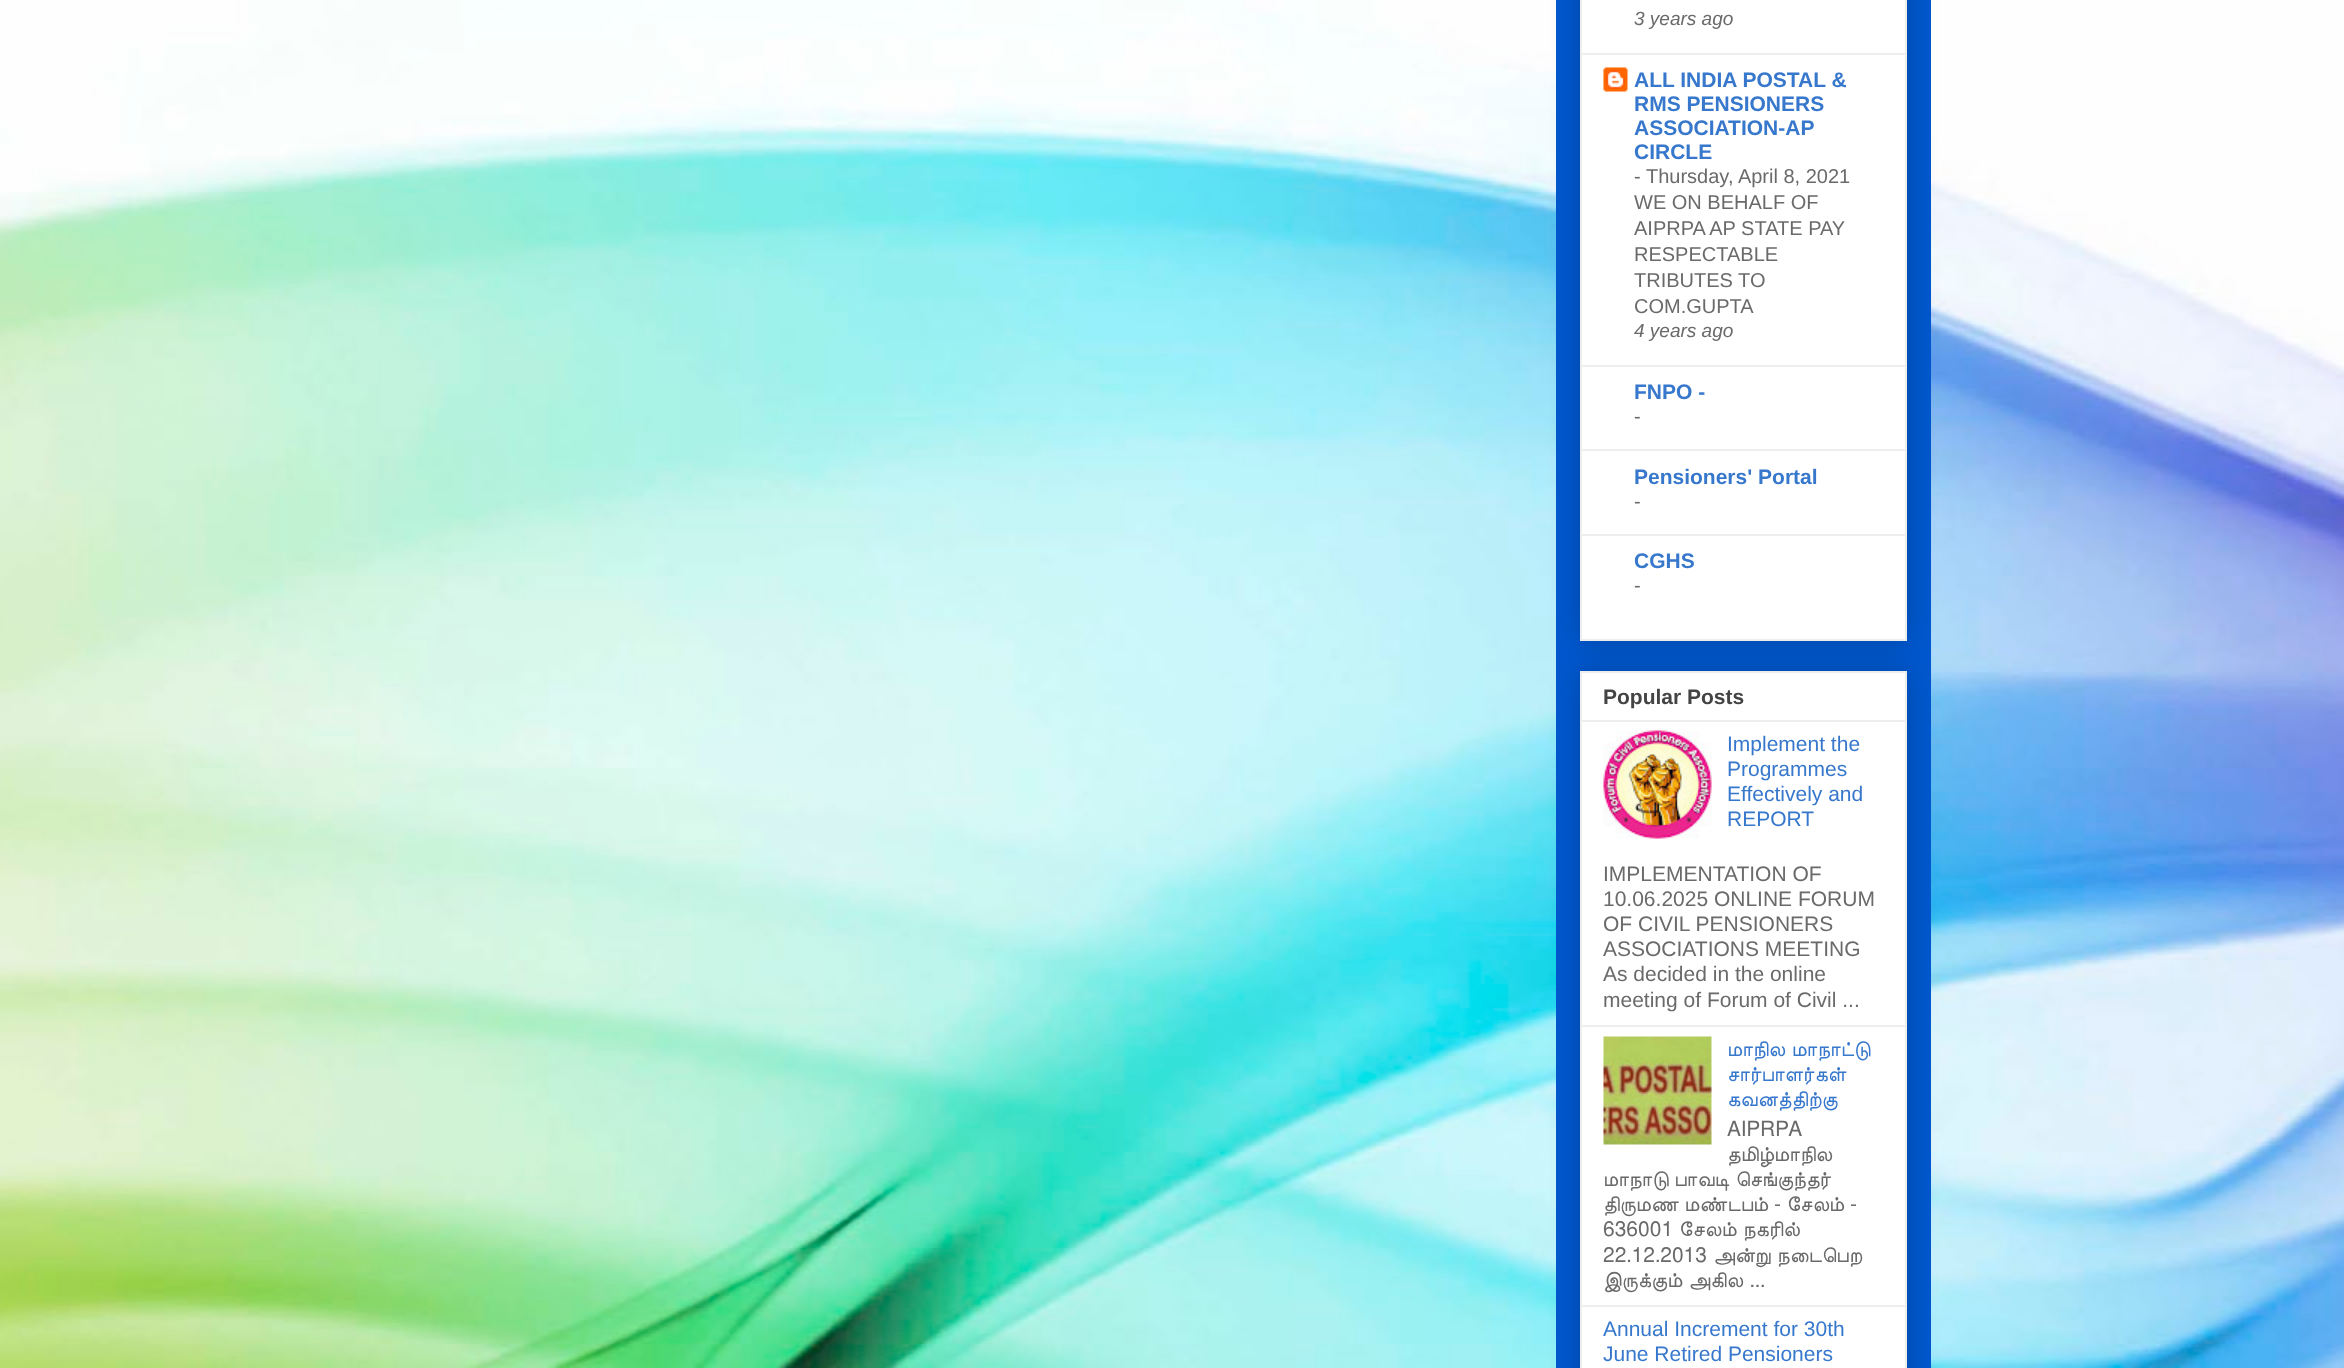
<svg xmlns="http://www.w3.org/2000/svg" width="2344" height="1368">
<style>
.a{font:italic 19px Liberation Sans;fill:#6a6a6a}
.b{font:bold 21px Liberation Sans;fill:#3778cd}
.c{font:20px Liberation Sans;fill:#6a6a6a}
.d{font:bold 21px Liberation Sans;fill:#444}
.e{font:21px Liberation Sans;fill:#3778cd}
.f{font:21px Liberation Sans;fill:#6a6a6a}
.g{font:21px FreeSans;fill:#3778cd}
.h{font:21px FreeSans;fill:#6a6a6a}
</style>
<rect width="100%" height="100%" fill="#fff"/>
<image href="1.png" x="0" y="0" width="2344" height="1368"/>
<path fill="#0058ce" d="M1556 0h375v1368H1556z"/>
<path fill="#00000033" filter="blur(15px)" d="M1580 -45h327v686H1580z"/>
<path fill="#fff" stroke="#eee" stroke-width="2" d="M1581 -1h325v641H1581z"/>
<path fill="#eee" d="M1581 53h324v2H1581z"/>
<image href="2.png" x="1603" y="67" width="25" height="25"/>
<path fill="#eee" d="M1581 365h324v2H1581z"/>
<path fill="#eee" d="M1581 449h324v2H1581z"/>
<path fill="#eee" d="M1581 534h324v2H1581z"/>
<path fill="#00000033" filter="blur(15px)" d="M1580 671h327v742H1580z"/>
<path fill="#fff" stroke="#eee" stroke-width="2" d="M1581 672h325v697H1581z"/>
<path fill="#eee" d="M1581 720h324v2H1581z"/>
<image href="3.png" x="1603" y="730" width="109" height="109"/>
<path fill="#eee" d="M1581 1025h324v2H1581z"/>
<image href="4.png" x="1603" y="1036" width="109" height="109"/>
<path fill="#eee" d="M1581 1305h324v2H1581z"/>
<text class="a" x="1634" y="25">3 years ago</text>
<text class="b" x="1634" y="87">ALL INDIA POSTAL &amp;</text>
<text class="b" x="1634" y="111">RMS PENSIONERS</text>
<text class="b" x="1634" y="135">ASSOCIATION-AP</text>
<text class="b" x="1634" y="159">CIRCLE</text>
<text class="c" x="1634" y="183">-</text>
<text class="c" x="1646" y="183">Thursday, April 8, 2021</text>
<text class="c" x="1634" y="209">WE ON BEHALF OF</text>
<text class="c" x="1634" y="235">AIPRPA AP STATE PAY</text>
<text class="c" x="1634" y="261">RESPECTABLE</text>
<text class="c" x="1634" y="287">TRIBUTES TO</text>
<text class="c" x="1634" y="313">COM.GUPTA</text>
<text class="a" x="1634" y="337">4 years ago</text>
<text class="b" x="1634" y="399">FNPO -</text>
<text class="c" x="1634" y="423">-</text>
<text class="b" x="1634" y="484">Pensioners' Portal</text>
<text class="c" x="1634" y="508">-</text>
<text class="b" x="1634" y="568">CGHS</text>
<text class="c" x="1634" y="592">-</text>
<text class="d" x="1603" y="704">Popular Posts</text>
<text class="e" x="1727" y="751">Implement the</text>
<text class="e" x="1727" y="776">Programmes</text>
<text class="e" x="1727" y="801">Effectively and</text>
<text class="e" x="1727" y="826">REPORT</text>
<text class="f" x="1603" y="881">IMPLEMENTATION OF</text>
<text class="f" x="1603" y="906">10.06.2025 ONLINE FORUM</text>
<text class="f" x="1603" y="931">OF CIVIL PENSIONERS</text>
<text class="f" x="1603" y="956">ASSOCIATIONS MEETING</text>
<text class="f" x="1603" y="981">As decided in the online</text>
<text class="f" x="1603" y="1007">meeting of Forum of Civil ...</text>
<text class="g" x="1727" y="1056" word-spacing="1">மாநில மாநாட்டு</text>
<text class="g" x="1727" y="1081">சார்பாளர்கள்</text>
<text class="g" x="1727" y="1106">கவனத்திற்கு</text>
<text class="h" x="1727" y="1136">AIPRPA</text>
<text class="h" x="1727" y="1161">தமிழ்மாநில</text>
<text class="h" x="1603" y="1186">மாநாடு</text>
<text class="h" x="1674" y="1186" word-spacing="1">பாவடி செங்குந்தர்</text>
<text class="h" x="1603" y="1211" word-spacing="0.5">திருமண மண்டபம் - சேலம் -</text>
<text class="h" x="1603" y="1236">636001</text>
<text class="h" x="1679" y="1236" word-spacing="1">சேலம் நகரில்</text>
<text class="h" x="1603" y="1262" word-spacing="1">22.12.2013 அன்று நடைபெற</text>
<text class="h" x="1603" y="1287" word-spacing="1">இருக்கும் அகில ...</text>
<text class="e" x="1603" y="1336">Annual Increment for 30th</text>
<text class="e" x="1603" y="1361">June Retired Pensioners</text>
</svg>
